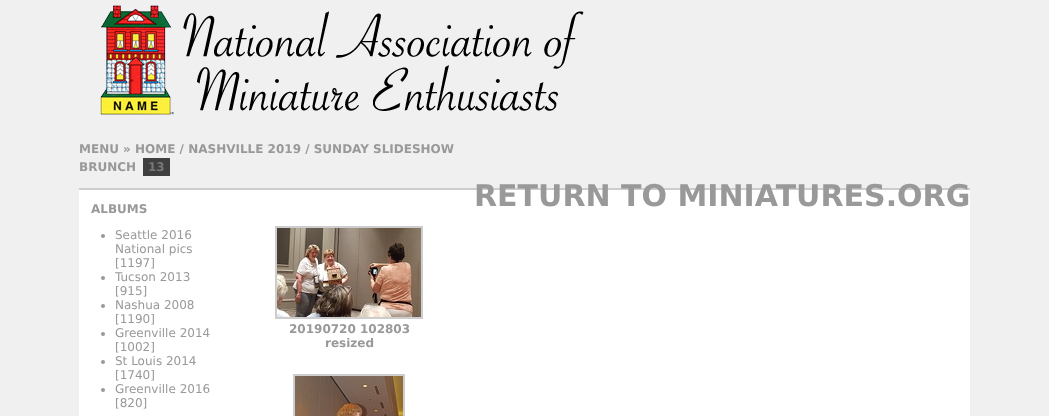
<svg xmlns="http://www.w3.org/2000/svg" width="1049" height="416">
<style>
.a{font:bold 12px DejaVu Sans;fill:#999}
.b{font:bold 12px DejaVu Sans;fill:#777}
.c{font:bold 30px DejaVu Sans;fill:#999}
.d{font:12px DejaVu Sans;fill:#999}
</style>
<rect width="100%" height="100%" fill="#f0f0f0"/>
<path fill="#3f3f3f" d="M143 158h27v18H143z"/>
<image href="1.png" x="100" y="5" width="484" height="110"/>
<path fill="#fff" d="M79 190h891v226H79z"/>
<path fill="#cdcdcd" d="M79 188h891v2H79z"/>
<circle fill="#999" cx="103" cy="236" r="2"/>
<circle fill="#999" cx="103" cy="278" r="2"/>
<circle fill="#999" cx="103" cy="306" r="2"/>
<circle fill="#999" cx="103" cy="334" r="2"/>
<circle fill="#999" cx="103" cy="362" r="2"/>
<circle fill="#999" cx="103" cy="390" r="2"/>
<path fill="none" stroke="#cdcdcd" stroke-width="2" d="M276 227h146v91H276z"/>
<image href="2.png" x="277" y="228" width="144" height="89"/>
<path fill="none" stroke="#cdcdcd" stroke-width="2" d="M294 375h110v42H294z"/>
<image href="3.png" x="295" y="376" width="108" height="40"/>
<text class="a" x="79" y="153">MENU » HOME / NASHVILLE 2019 / SUNDAY</text>
<text class="a" x="373" y="153">SLIDESHOW</text>
<text class="a" x="79" y="171">BRUNCH</text>
<text class="b" x="148" y="171">13</text>
<text class="c" x="474" y="206">RETURN TO MINIATURES.ORG</text>
<text class="a" x="91" y="213">ALBUMS</text>
<text class="d" x="115" y="239">Seattle 2016</text>
<text class="d" x="115" y="253">National pics</text>
<text class="d" x="115" y="267">[1197]</text>
<text class="d" x="115" y="281">Tucson 2013</text>
<text class="d" x="115" y="295">[915]</text>
<text class="d" x="115" y="309">Nashua 2008</text>
<text class="d" x="115" y="323">[1190]</text>
<text class="d" x="115" y="337">Greenville 2014</text>
<text class="d" x="115" y="351">[1002]</text>
<text class="d" x="115" y="365">St Louis 2014</text>
<text class="d" x="115" y="379">[1740]</text>
<text class="d" x="115" y="393">Greenville 2016</text>
<text class="d" x="115" y="407">[820]</text>
<text class="a" x="289" y="333">20190720 102803</text>
<text class="a" x="325" y="347">resized</text>
</svg>
